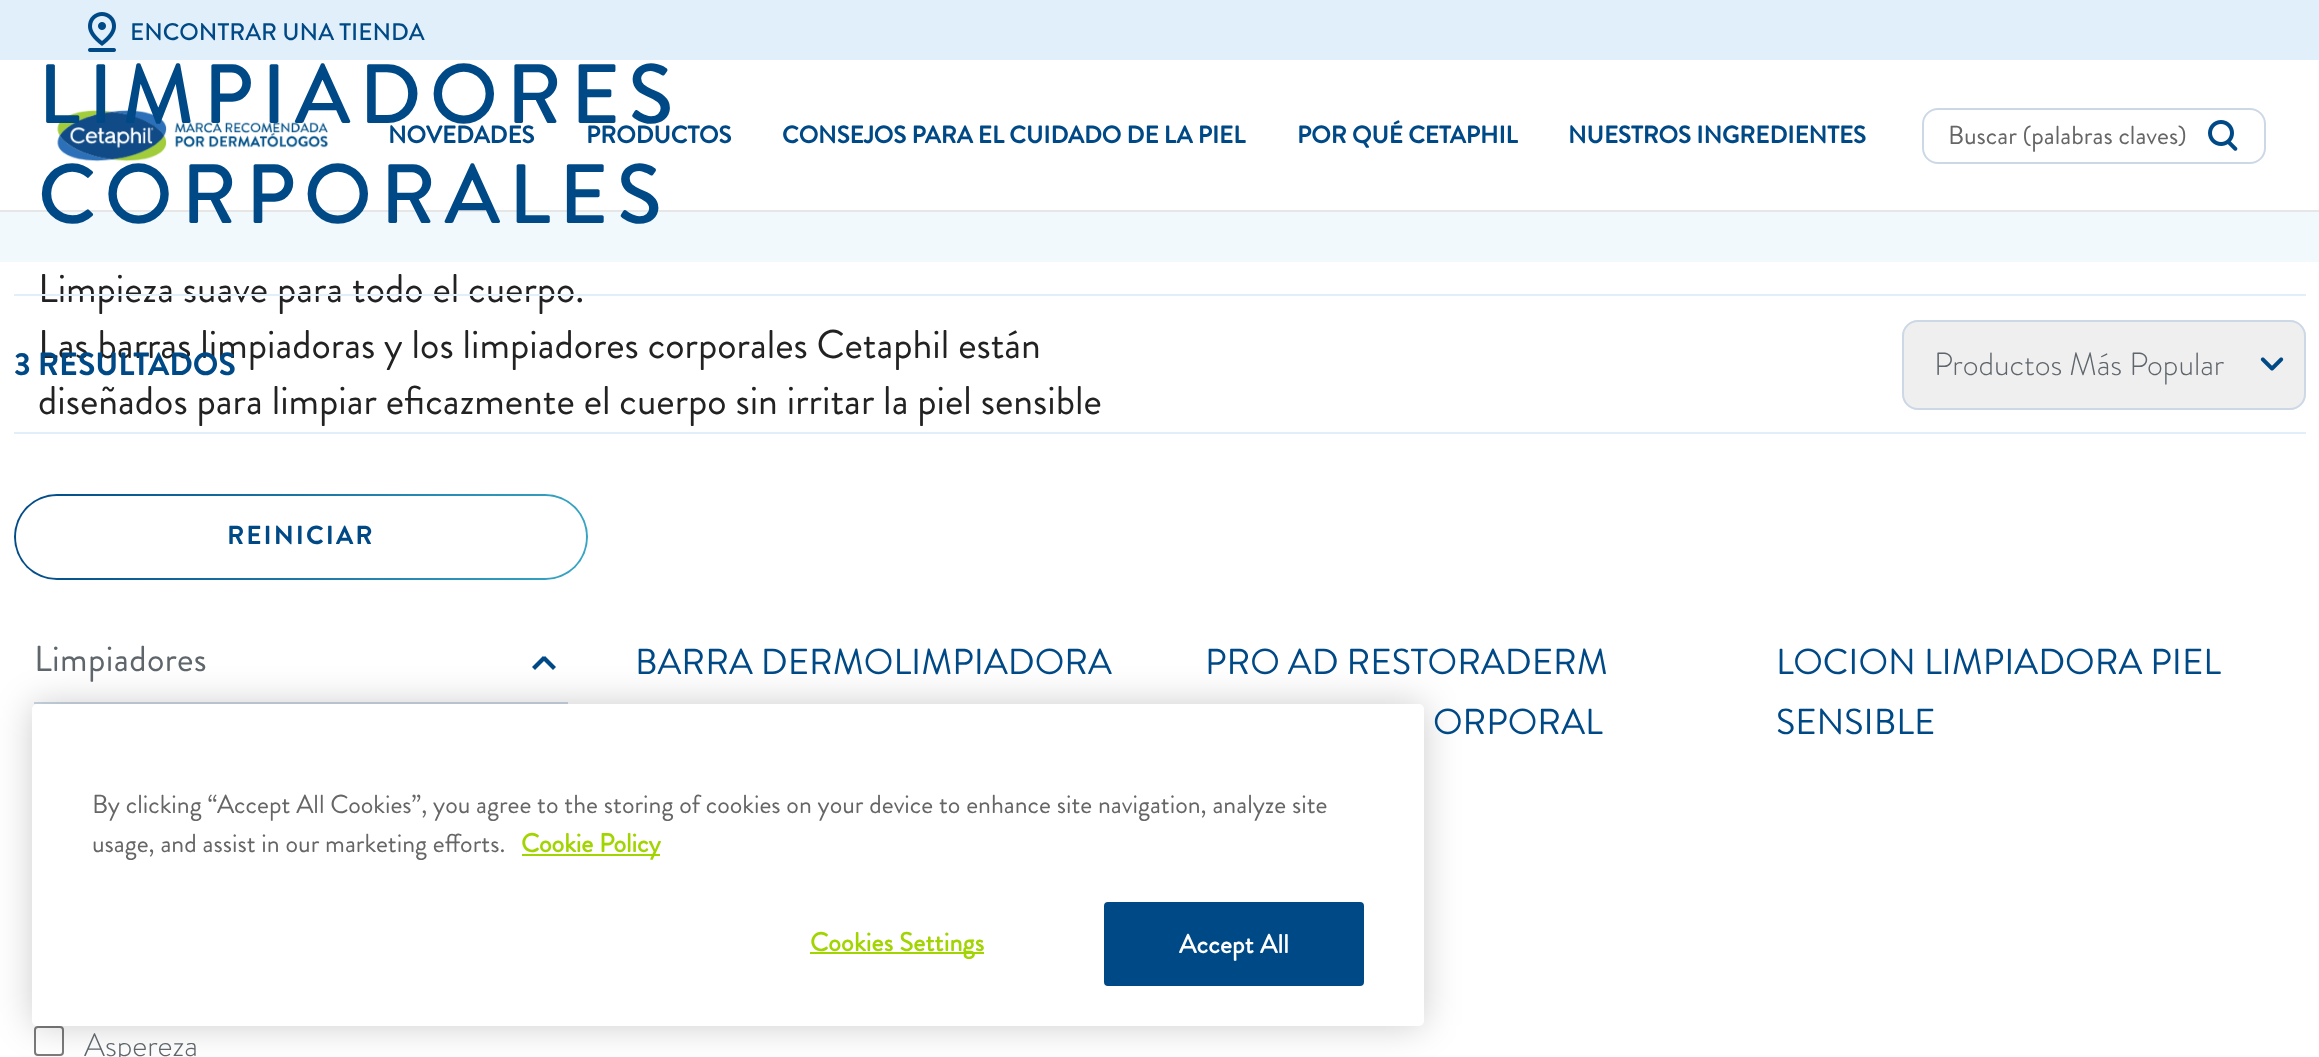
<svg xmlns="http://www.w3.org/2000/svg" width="2319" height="1057">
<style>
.a{font:500 24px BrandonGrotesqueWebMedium;fill:#004987}
.b{font:bold 24px BrandonGrotesqueWebMedium;fill:#004987}
.c{font:26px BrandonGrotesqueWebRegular;fill:#666}
.d{font:500 84px BrandonGrotesqueWebMedium;letter-spacing:8.4px;fill:#004987}
.e{font:40px BrandonGrotesqueWebRegular;fill:#222}
.f{font:bold 32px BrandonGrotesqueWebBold;fill:#004987}
.g{font:300 32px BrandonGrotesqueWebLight;fill:#5e656b}
.h{font:bold 26px BrandonGrotesqueWebBold;letter-spacing:2px;fill:#004987}
.i{font:36px BrandonGrotesqueWebRegular;letter-spacing:0.4px;fill:#5e656b}
.j{font:36px BrandonGrotesqueWebRegular;fill:#004987}
.k{font:bold 26px BrandonGrotesqueWebRegular;fill:#a1d400}
.l{font:bold 26px BrandonGrotesqueWebRegular;letter-spacing:0.25px;fill:#a1d400}
.m{font:bold 26px BrandonGrotesqueWebRegular;letter-spacing:0.25px;fill:#fff}
</style>
<defs>
<linearGradient id="g1" gradientUnits="userSpaceOnUse" x1="16" y1="482" x2="586" y2="592"><stop offset="0" stop-color="#004987"/><stop offset="1" stop-color="#38a6c4"/></linearGradient>
</defs>
<rect width="100%" height="100%" fill="#fff"/>
<path fill="#e0eff9" d="M0 0h2319v60H0z"/>
<image href="1.png" x="88" y="12" width="28" height="40"/>
<path fill="#e6e6e6" d="M0 210h2319v2H0z"/>
<image href="2.png" x="57" y="110" width="271" height="52"/>
<rect fill="none" stroke="#cdd8e6" stroke-width="2" x="1923" y="109" width="342" height="54" rx="15"/>
<image href="3.png" x="2208" y="120" width="30" height="31"/>
<path fill="#f1f9fc" d="M0 212h2319v50H0z"/>
<path fill="#e0eff9" d="M14 432h2292v2H14z"/>
<rect fill="#efefef" x="1902" y="320" width="404" height="90" rx="16"/>
<image href="4.png" x="2260" y="357" width="24" height="14"/>
<rect fill="none" stroke="#cdd8e6" stroke-width="2" x="1903" y="321" width="402" height="88" rx="15"/>
<rect fill="url(#g1)" x="14" y="494" width="574" height="86" rx="43"/>
<path fill="#fff" d="M57 496c-23 0-41 18-41 41c0 23 18 41 41 41h488c23 0 41-18 41-41c0-23-18-41-41-41z"/>
<path fill="#cdd8e6" d="M34 702h534v2H34z"/>
<path fill="#004987" d="M545 656l11 11l-3 3l-11-11z"/>
<path fill="#004987" d="M532 667l11-11l3 3l-11 11z"/>
<rect fill="none" stroke="#7b7b7b" stroke-width="2" x="35" y="1027" width="28" height="28" rx="3"/>
<rect fill="#00000033" filter="blur(18px)" x="32" y="704" width="1392" height="322" rx="5"/>
<rect fill="#fff" x="32" y="704" width="1392" height="322" rx="5"/>
<path fill="#a1d400" d="M522 854h138v2H522z"/>
<path fill="#a1d400" d="M810 952h174v2H810z"/>
<rect fill="#004987" stroke="#004987" stroke-width="2" x="1105" y="903" width="258" height="82" rx="3"/>
<text class="a" x="130" y="40">ENCONTRAR UNA TIENDA</text>
<text class="b" x="388" y="143">NOVEDADES</text>
<text class="b" x="586" y="143">PRODUCTOS</text>
<text class="b" x="782" y="143">CONSEJOS PARA EL CUIDADO DE LA PIEL</text>
<text class="b" x="1297" y="143">POR QUÉ CETAPHIL</text>
<text class="b" x="1568" y="143">NUESTROS INGREDIENTES</text>
<text class="c" x="1948" y="144">Buscar (palabras claves)</text>
<text class="d" x="38" y="123">LIMPIADORES</text>
<text class="d" x="38" y="223">CORPORALES</text>
<text class="e" x="38" y="302">Limpieza suave para todo el cuerpo.</text>
<text class="e" x="38" y="358">Las barras limpiadoras y los limpiadores corporales Cetaphil están</text>
<text class="e" x="38" y="414">diseñados para limpiar eficazmente el cuerpo sin irritar la piel sensible</text>
<path fill="#e0eff9" d="M14 294h2292v2H14z"/>
<text class="f" x="14" y="375">3 RESULTADOS</text>
<text class="g" x="1934" y="375">Productos Más Popular</text>
<text class="h" x="227" y="544">REINICIAR</text>
<text class="i" x="34" y="671">Limpiadores</text>
<text class="g" x="84" y="1056">Aspereza</text>
<text class="j" x="635" y="674">BARRA DERMOLIMPIADORA</text>
<text class="j" x="1205" y="674">PRO AD RESTORADERM</text>
<text class="j" x="1433" y="734">ORPORAL</text>
<text class="j" x="1776" y="674">LOCION LIMPIADORA PIEL</text>
<text class="j" x="1776" y="734">SENSIBLE</text>
<text class="c" x="92" y="813">By clicking “Accept All Cookies”, you agree to the storing of cookies on your device to enhance site navigation, analyze site</text>
<text class="c" x="92" y="852">usage, and assist in our marketing efforts.</text>
<text class="k" x="521" y="852">Cookie Policy</text>
<text class="l" x="810" y="951">Cookies Settings</text>
<text class="m" x="1179" y="953">Accept All</text>
</svg>
